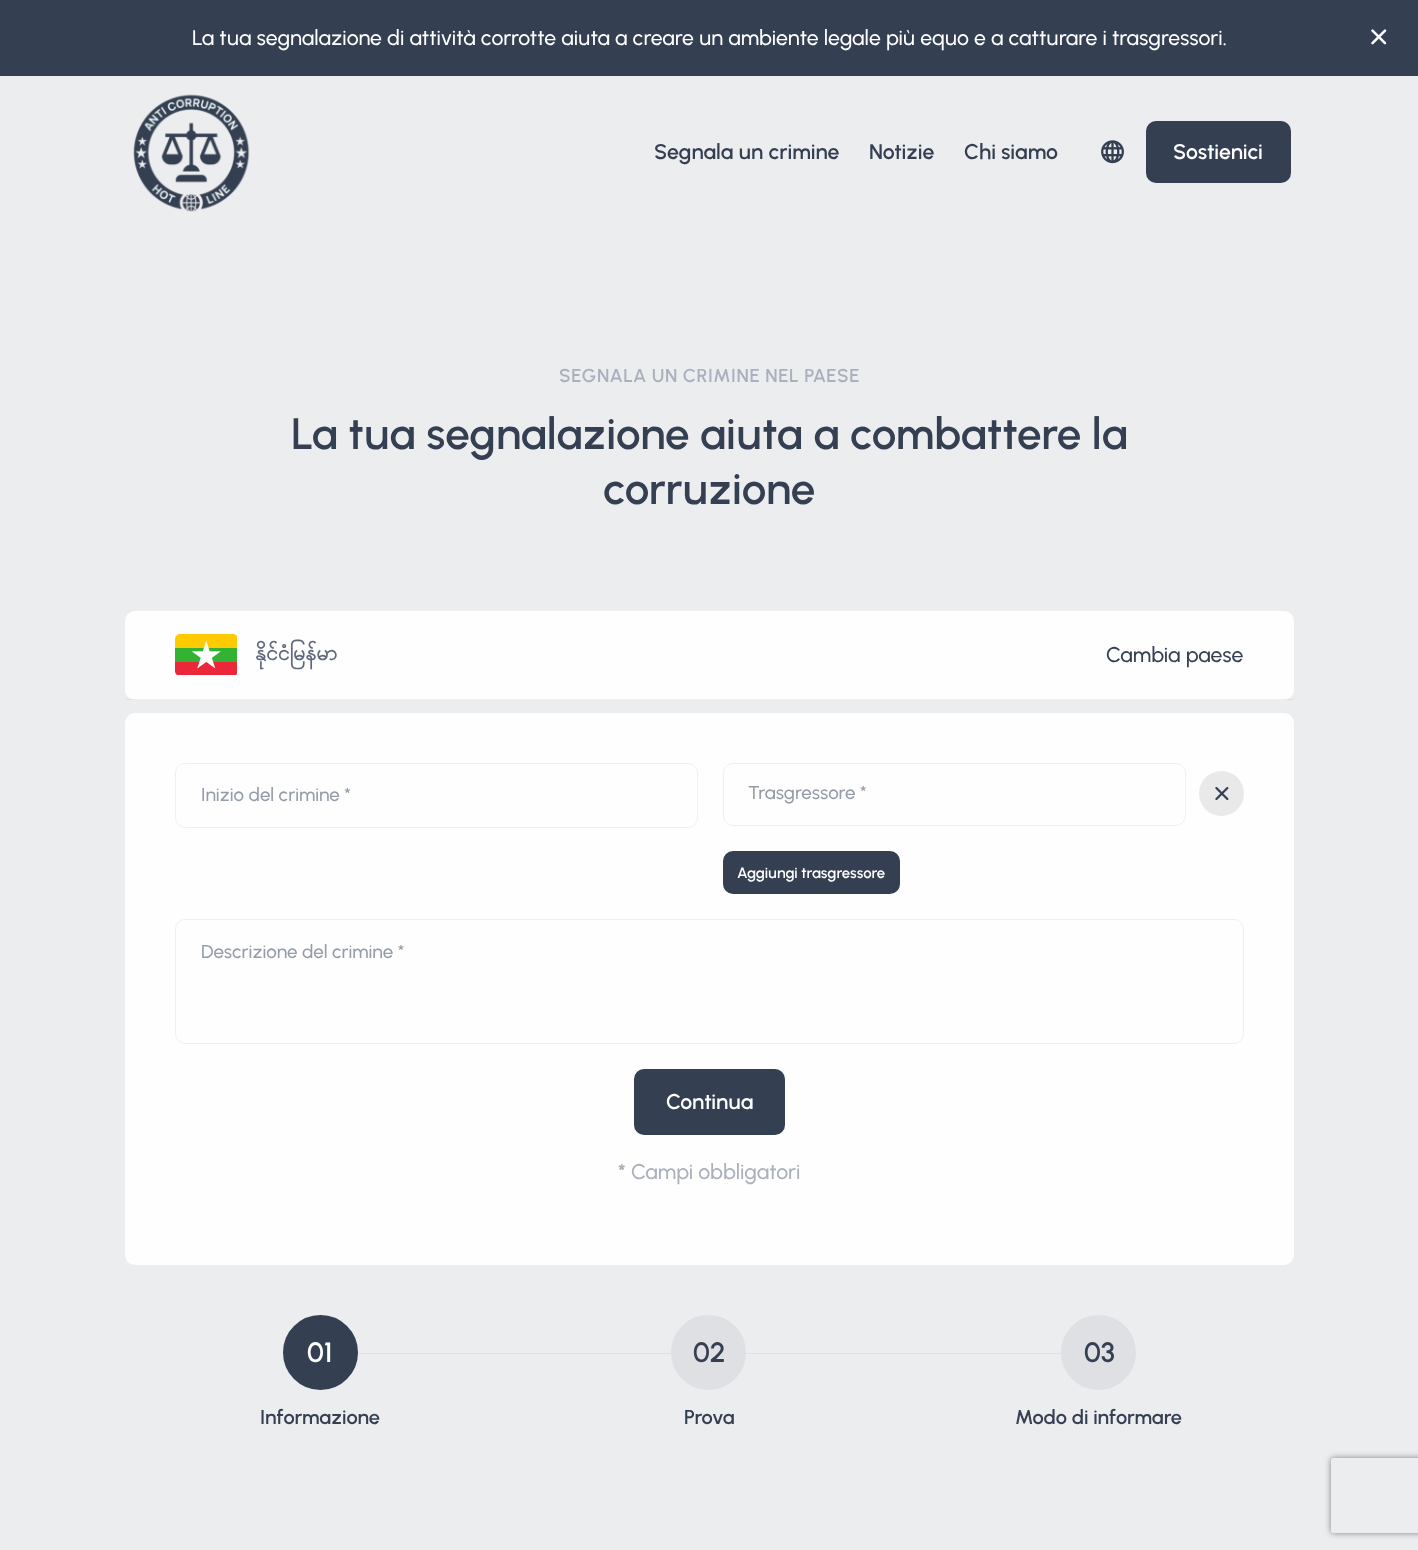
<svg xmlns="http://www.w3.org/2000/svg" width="1418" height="1550">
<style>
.a{font:500 21.25px Urbanist;fill:#fff}
.b{font:600 21.25px Urbanist;fill:#343f52}
.c{font:600 21.25px Urbanist;fill:#fff}
.d{font:600 18.75px Urbanist;letter-spacing:0.5px;fill:#aab0bc}
.e{font:600 43.9px Urbanist;fill:#343f52}
.f{font:bold 21.25px Padauk;fill:#60697b}
.g{font:500 21.25px Urbanist;fill:#343f52}
.h{font:500 18.75px Urbanist;fill:#959ca9}
.i{font:600 15px Urbanist;fill:#fff}
.j{font:bold 21.25px Urbanist;fill:#aab0bc}
.k{font:500 21.25px Urbanist;fill:#aab0bc}
.l{font:600 28px Urbanist;fill:#fff}
.m{font:600 20px Urbanist;fill:#343f52}
.n{font:600 28px Urbanist;fill:#343f52}
</style>
<defs>
<clipPath id="clip1"><path d="M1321 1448h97v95h-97zm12.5 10h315c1.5 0 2.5 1 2.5 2.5v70c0 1.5-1 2.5-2.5 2.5h-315c-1.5 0-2.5-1-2.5-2.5v-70c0-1.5 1-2.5 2.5-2.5z" clip-rule="evenodd"/></clipPath>
</defs>
<rect width="100%" height="100%" fill="#ecedef"/>
<path fill="#343f52" d="M0 0h1418v76H0z"/>
<image href="1.png" x="1371" y="29" width="16" height="16"/>
<image href="2.png" x="133" y="94" width="117" height="118"/>
<image href="3.png" x="1101" y="140" width="23" height="24"/>
<rect fill="#343f52" stroke="#343f52" stroke-width="3" x="1147.5" y="122.5" width="142" height="59" rx="8.5"/>
<rect fill="#fefefe" x="125" y="611" width="1169" height="89" rx="10"/>
<path fill="#a4aec633" d="M125 699h1169v1H125z"/>
<image href="4.png" x="175" y="634" width="62" height="41"/>
<rect fill="#fefefe" x="125" y="713" width="1169" height="552" rx="10"/>
<rect fill="none" stroke="#083c8212" x="175.5" y="763.5" width="522" height="64" rx="9.5"/>
<rect fill="none" stroke="#edf0f5" x="723.5" y="763.5" width="462" height="62" rx="9.5"/>
<circle fill="#e9e9e9" cx="1221.5" cy="793.5" r="22.5"/>
<image href="5.png" x="1215" y="787" width="14" height="14"/>
<rect fill="#343f52" stroke="#343f52" stroke-width="3" x="724.5" y="852.5" width="174" height="40" rx="8.5"/>
<rect fill="none" stroke="#ecf0f5" x="175.5" y="919.5" width="1068" height="124" rx="9.5"/>
<rect fill="#343f52" stroke="#343f52" stroke-width="3" x="635.5" y="1070.5" width="148" height="63" rx="8.5"/>
<g clip-path="url(#clip1)">
<rect fill="#808080" filter="blur(3px)" x="1331" y="1458" width="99" height="75" rx="2.5"/>
</g>
<path fill="#dee0e7" d="M357 1353h315v1H357z"/>
<circle fill="#343f52" stroke="#343f52" stroke-width="3" cx="320.5" cy="1352.5" r="36"/>
<path fill="#dee0e7" d="M745 1353h317v1H745z"/>
<circle fill="#dfe0e3" stroke="#dfe0e3" stroke-width="3" cx="708.5" cy="1352.5" r="36"/>
<circle fill="#dfe0e3" stroke="#dfe0e3" stroke-width="3" cx="1098.5" cy="1352.5" r="36"/>
<text class="a" x="192" y="45">La tua segnalazione di attività corrotte aiuta a creare un ambiente legale più equo e a catturare i trasgressori.</text>
<text class="b" x="654" y="159">Segnala un crimine</text>
<text class="b" x="869" y="159">Notizie</text>
<text class="b" x="964" y="159">Chi siamo</text>
<text class="c" x="1173" y="159">Sostienici</text>
<text class="d" x="559" y="382">SEGNALA UN CRIMINE NEL PAESE</text>
<text class="e" x="291" y="449">La tua segnalazione aiuta a combattere la</text>
<text class="e" x="603" y="504">corruzione</text>
<text class="f" x="255" y="660">နိုင်ငံမြန်မာ</text>
<text class="g" x="1106" y="662">Cambia paese</text>
<text class="h" x="201" y="801">Inizio del crimine *</text>
<text class="h" x="748" y="799">Trasgressore *</text>
<text class="i" x="737" y="878">Aggiungi trasgressore</text>
<text class="h" x="201" y="958">Descrizione del crimine *</text>
<text class="c" x="666" y="1109">Continua</text>
<text class="j" x="618" y="1179">*</text>
<text class="k" x="631" y="1179">Campi obbligatori</text>
<text class="l" x="307" y="1362">01</text>
<text class="m" x="260" y="1424">Informazione</text>
<text class="n" x="693" y="1362">02</text>
<text class="m" x="684" y="1424">Prova</text>
<text class="n" x="1084" y="1362">03</text>
<text class="m" x="1015" y="1424">Modo di informare</text>
</svg>
